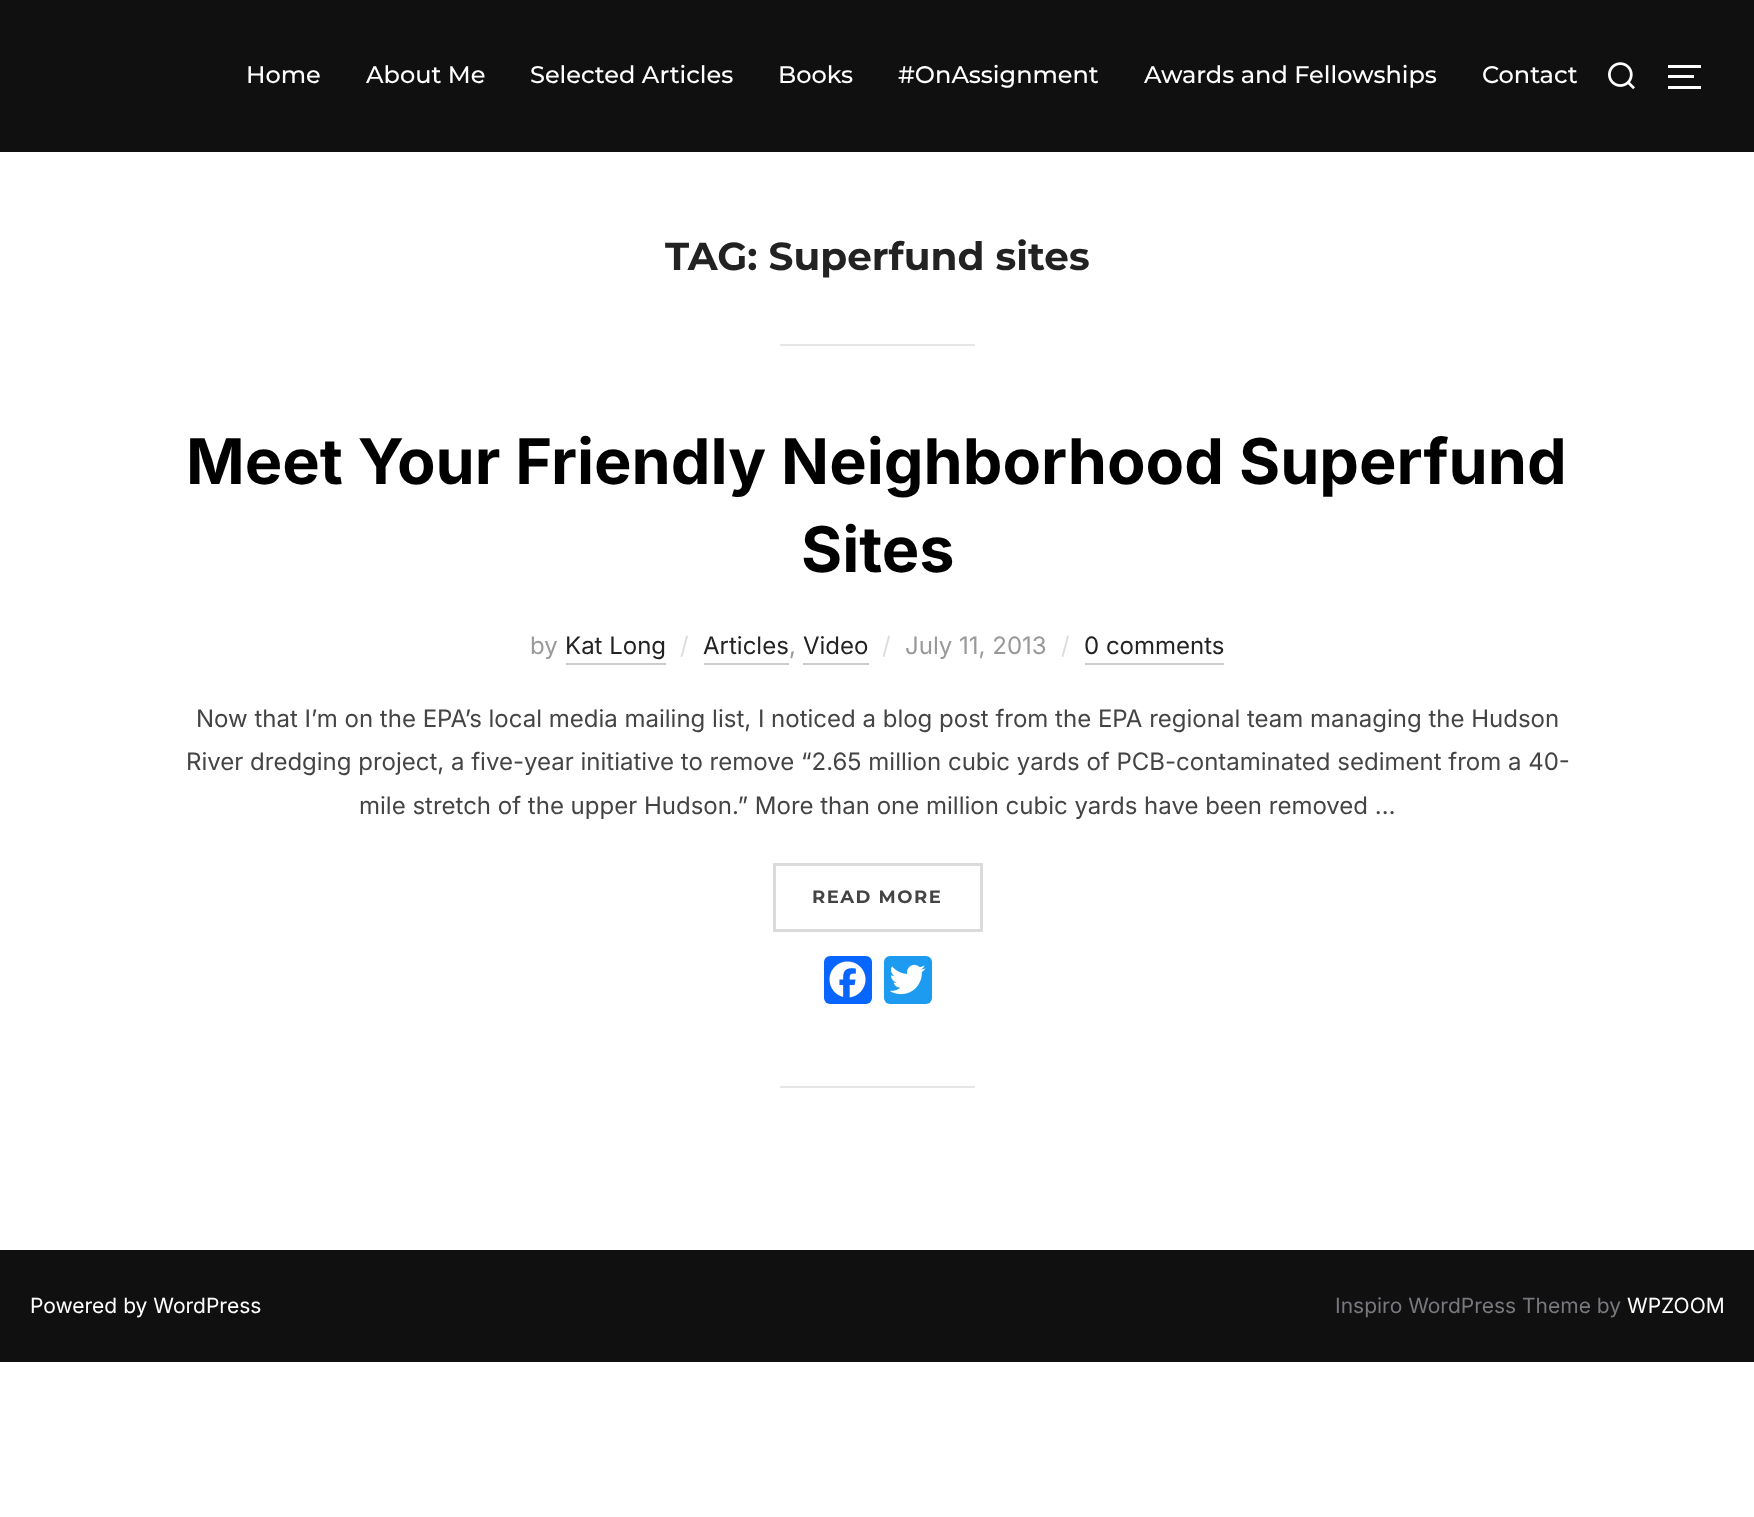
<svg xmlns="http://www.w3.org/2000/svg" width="1754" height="1517">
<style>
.a{font:500 24px Montserrat;fill:#fff}
.b{font:bold 39px Montserrat;fill:#222}
.c{font:bold 63px Inter;fill:#000}
.d{font:24px Inter;fill:#999}
.e{font:24px Inter;fill:#222}
.f{font:24px Inter;fill:#dbdddd}
.g{font:24px Inter;fill:#444}
.h{font:bold 18px Montserrat;letter-spacing:1.5px;fill:#444}
.i{font:21px Inter;fill:#fff}
.j{font:21px Inter;fill:#78787f}
</style>
<rect width="100%" height="100%" fill="#fff"/>
<path fill="#101010" d="M0 0h1754v152H0z"/>
<image href="1.png" x="1608" y="62" width="27" height="28"/>
<path fill="#fff" d="M1668 65h33v3H1668z"/>
<path fill="#fff" d="M1668 75h26v3H1668z"/>
<path fill="#fff" d="M1668 86h33v3H1668z"/>
<path fill="#e6e6e6" d="M780 344h195v2H780z"/>
<path fill="#ccc" d="M566 663h100v2H566z"/>
<path fill="#ccc" d="M704 663h85v2H704z"/>
<path fill="#ccc" d="M803 663h66v2H803z"/>
<path fill="#ccc" d="M1085 663h139v2H1085z"/>
<path fill="none" stroke="#dbdbdb" stroke-width="3" d="M774.5 864.5h207v66H774.5z"/>
<rect fill="#0866ff" x="824" y="956" width="48" height="48" rx="6"/>
<image href="2.png" x="829" y="961" width="37" height="37"/>
<rect fill="#1d9bf0" x="884" y="956" width="48" height="48" rx="6"/>
<image href="3.png" x="889" y="964" width="37" height="31"/>
<path fill="#e6e6e6" d="M780 1086h195v2H780z"/>
<path fill="#101010" d="M0 1250h1754v112H0z"/>
<text class="a" x="246" y="83">Home</text>
<text class="a" x="366" y="83">About Me</text>
<text class="a" x="530" y="83">Selected Articles</text>
<text class="a" x="778" y="83">Books</text>
<text class="a" x="898" y="83">#OnAssignment</text>
<text class="a" x="1144" y="83">Awards and Fellowships</text>
<text class="a" x="1482" y="83">Contact</text>
<text class="b" x="665" y="270">TAG: Superfund sites</text>
<text class="c" x="186" y="484">Meet Your Friendly Neighborhood Superfund</text>
<text class="c" x="801" y="572">Sites</text>
<text class="d" x="530" y="654">by</text>
<text class="e" x="565" y="654">Kat Long</text>
<text class="f" x="680" y="654">/</text>
<text class="e" x="703" y="654">Articles</text>
<text class="d" x="789" y="654">,</text>
<text class="e" x="803" y="654">Video</text>
<text class="f" x="882" y="654">/</text>
<text class="d" x="905" y="654">July 11, 2013</text>
<text class="f" x="1061" y="654">/</text>
<text class="e" x="1084" y="654">0 comments</text>
<text class="g" x="196" y="727">Now that I’m on the EPA’s local media mailing list, I noticed a blog post from the EPA regional team managing the Hudson</text>
<text class="g" x="186" y="770">River dredging project, a five-year initiative to remove “2.65 million cubic yards of PCB-contaminated sediment from a 40-</text>
<text class="g" x="359" y="814">mile stretch of the upper Hudson.” More than one million cubic yards have been removed …</text>
<text class="h" x="812" y="903">READ MORE</text>
<text class="i" x="30" y="1313">Powered by WordPress</text>
<text class="j" x="1335" y="1313">Inspiro WordPress Theme by</text>
<text class="i" x="1627" y="1313">WPZOOM</text>
</svg>
